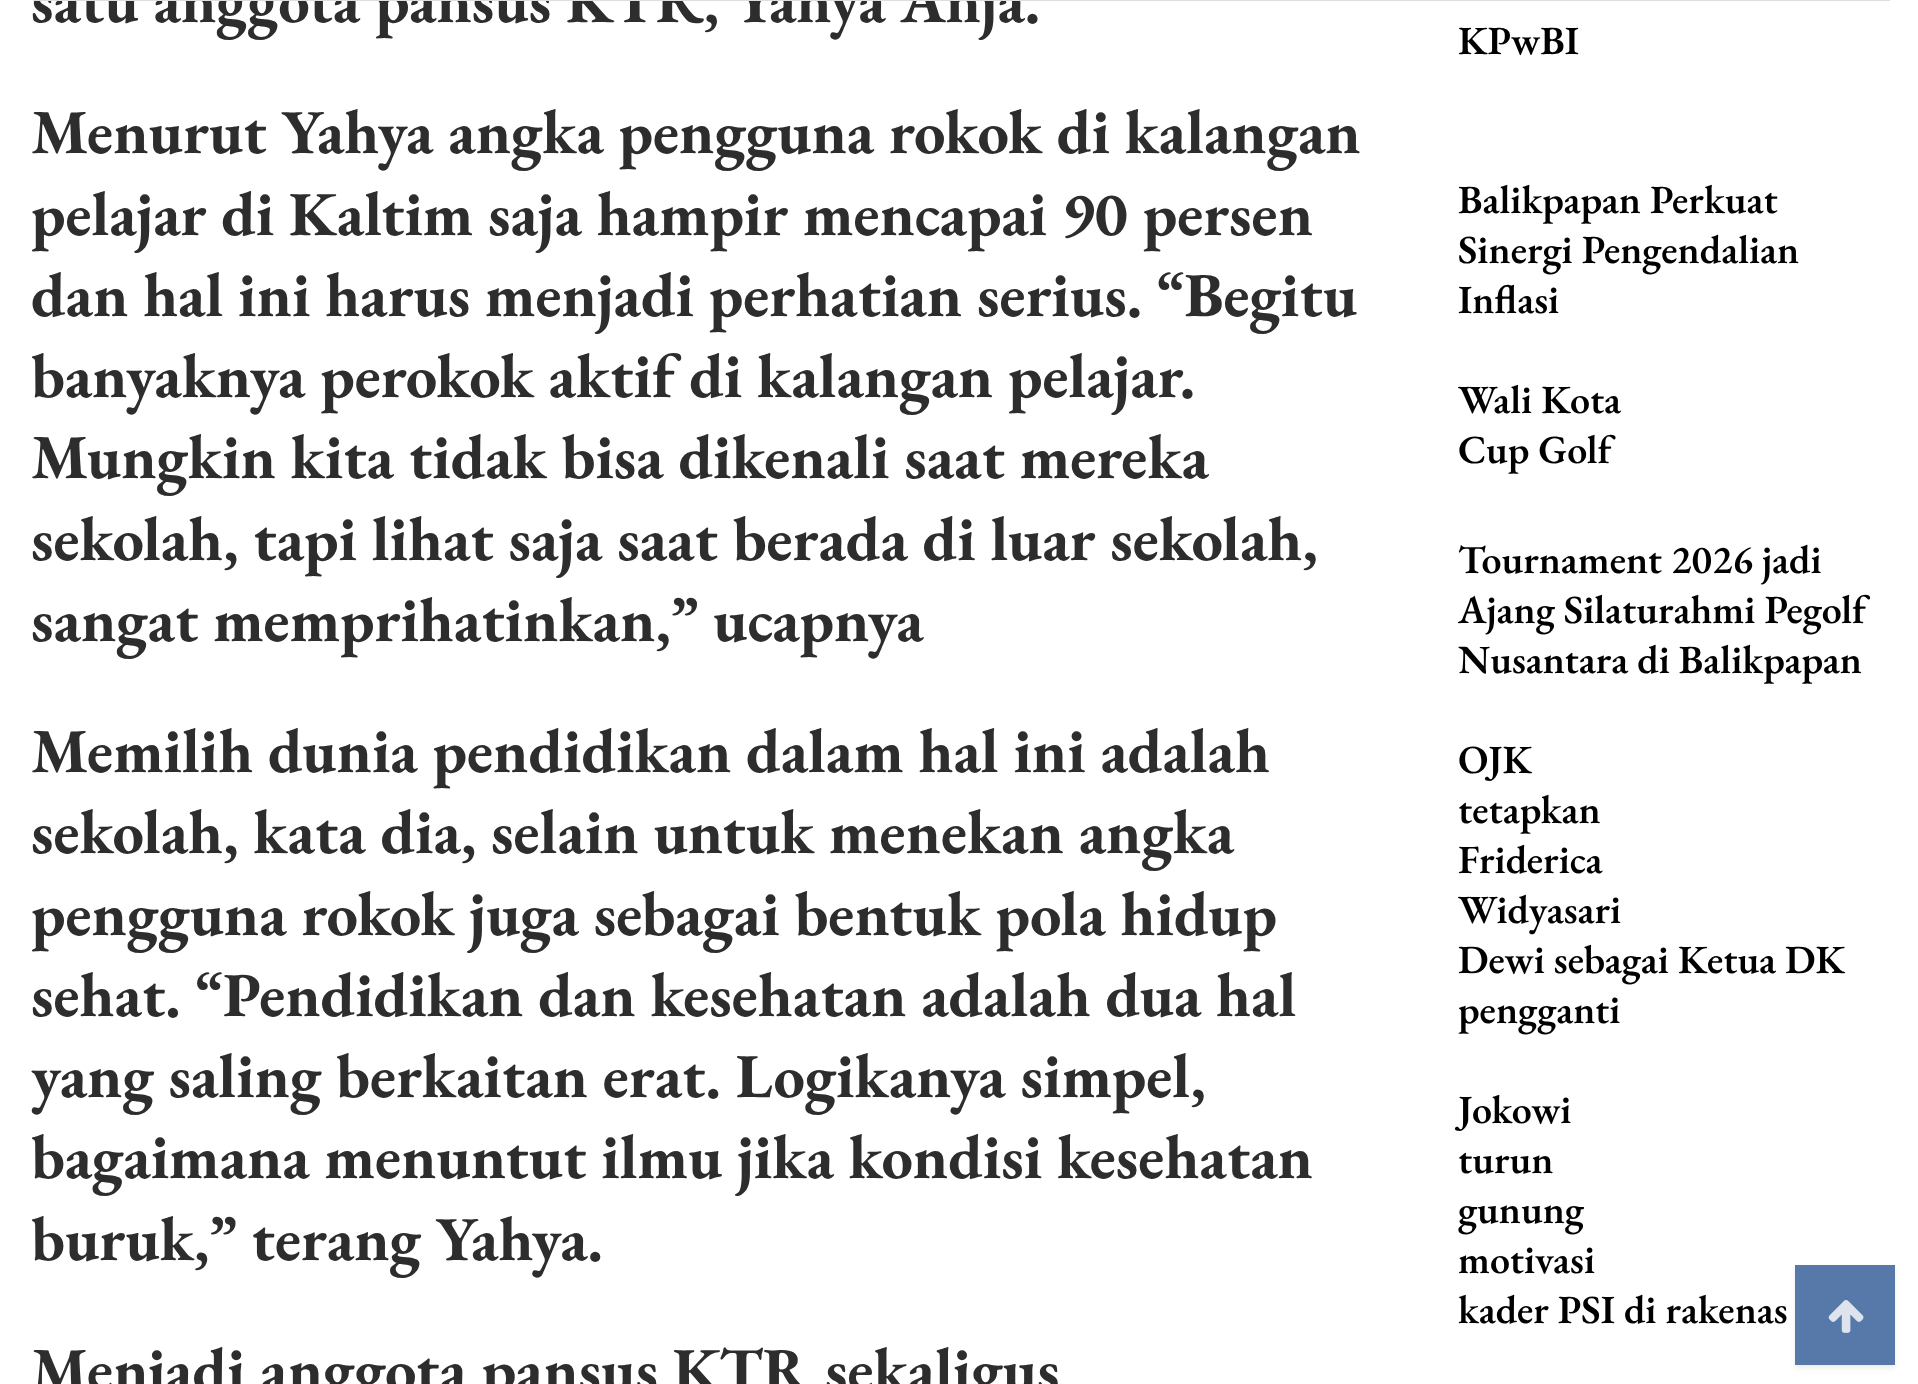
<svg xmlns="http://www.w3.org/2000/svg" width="1918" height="1384">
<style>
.a{font:bold 62.5px EB Garamond;fill:#2d2d2d}
.b{font:600 40px EB Garamond;fill:#000}
</style>
<rect width="100%" height="100%" fill="#fff"/>
<path fill="#33333317" filter="blur(2.5px)" d="M1795 1268h100v100H1795z"/>
<path fill="#5679aa" d="M1795 1265h100v100H1795z"/>
<image href="1.png" x="1828" y="1300" width="36" height="33"/>
<text class="a" x="31" y="22">satu anggota pansus KTR, Yahya Anja.</text>
<text class="a" x="31" y="153">Menurut Yahya angka pengguna rokok di kalangan</text>
<text class="a" x="31" y="235">pelajar di Kaltim saja hampir mencapai 90 persen</text>
<text class="a" x="31" y="316">dan hal ini harus menjadi perhatian serius. “Begitu</text>
<text class="a" x="31" y="397">banyaknya perokok aktif di kalangan pelajar.</text>
<text class="a" x="31" y="478">Mungkin kita tidak bisa dikenali saat mereka</text>
<text class="a" x="31" y="560">sekolah, tapi lihat saja saat berada di luar sekolah,</text>
<text class="a" x="31" y="641">sangat memprihatinkan,” ucapnya</text>
<text class="a" x="31" y="772">Memilih dunia pendidikan dalam hal ini adalah</text>
<text class="a" x="31" y="853">sekolah, kata dia, selain untuk menekan angka</text>
<text class="a" x="31" y="935">pengguna rokok juga sebagai bentuk pola hidup</text>
<text class="a" x="31" y="1016">sehat. “Pendidikan dan kesehatan adalah dua hal</text>
<text class="a" x="31" y="1097">yang saling berkaitan erat. Logikanya simpel,</text>
<text class="a" x="31" y="1178">bagaimana menuntut ilmu jika kondisi kesehatan</text>
<text class="a" x="31" y="1260">buruk,” terang Yahya.</text>
<text class="a" x="31" y="1391">Menjadi anggota pansus KTR sekaligus</text>
<text class="b" x="1458" y="54">KPwBI</text>
<text class="b" x="1458" y="213">Balikpapan Perkuat</text>
<text class="b" x="1458" y="263">Sinergi Pengendalian</text>
<text class="b" x="1458" y="313">Inflasi</text>
<text class="b" x="1458" y="413">Wali Kota</text>
<text class="b" x="1458" y="463">Cup Golf</text>
<text class="b" x="1458" y="573">Tournament 2026 jadi</text>
<text class="b" x="1458" y="623">Ajang Silaturahmi Pegolf</text>
<text class="b" x="1458" y="673">Nusantara di Balikpapan</text>
<text class="b" x="1458" y="773">OJK</text>
<text class="b" x="1458" y="823">tetapkan</text>
<text class="b" x="1458" y="873">Friderica</text>
<text class="b" x="1458" y="923">Widyasari</text>
<text class="b" x="1458" y="973">Dewi sebagai Ketua DK</text>
<text class="b" x="1458" y="1023">pengganti</text>
<text class="b" x="1458" y="1123">Jokowi</text>
<text class="b" x="1458" y="1173">turun</text>
<text class="b" x="1458" y="1223">gunung</text>
<text class="b" x="1458" y="1273">motivasi</text>
<text class="b" x="1458" y="1323">kader PSI di rakenas</text>
<path fill="#dedede" d="M33 0h1857v1H33z"/>
</svg>
